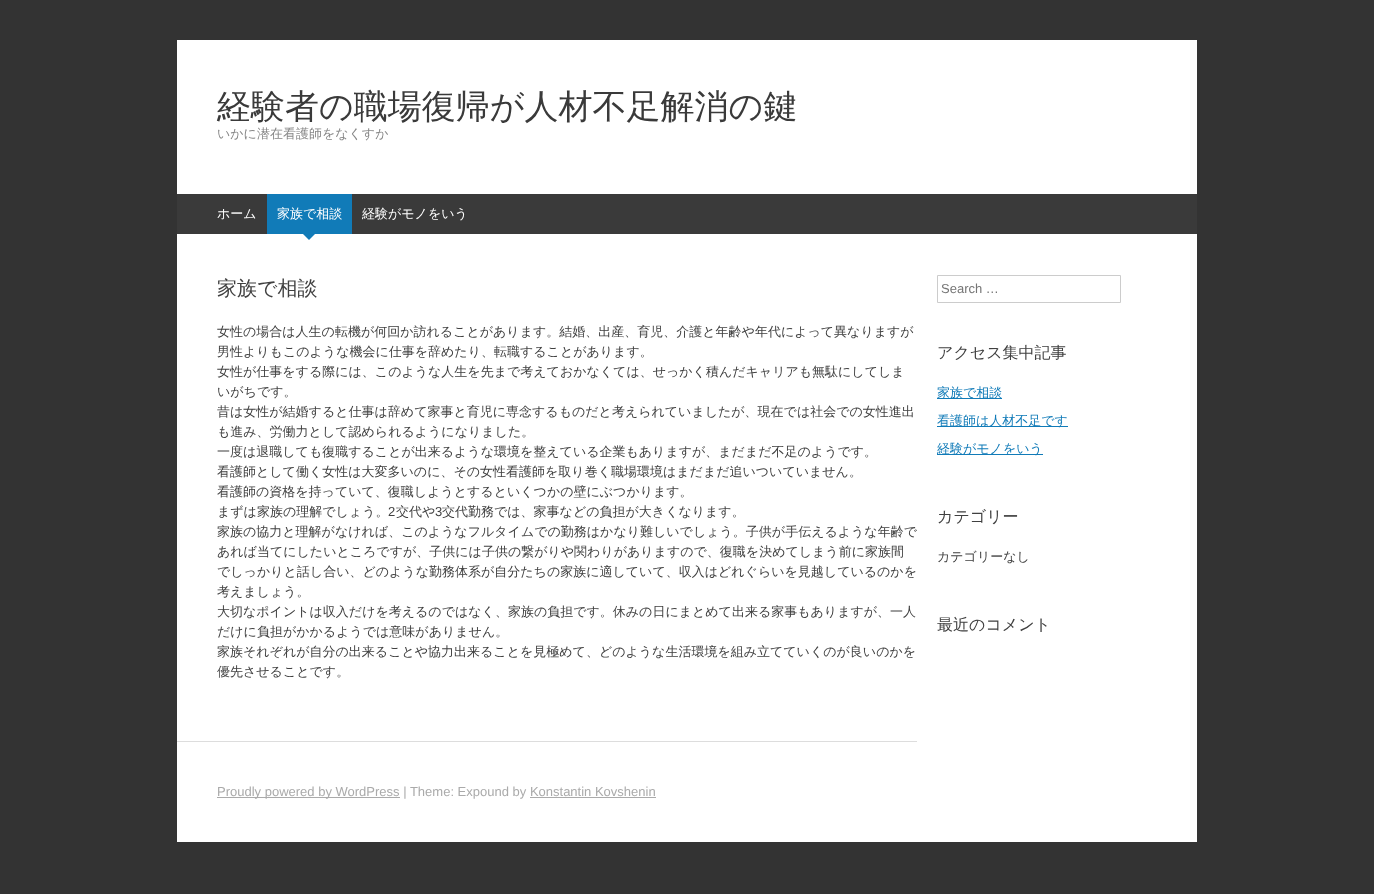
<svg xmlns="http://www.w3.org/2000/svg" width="1374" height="894">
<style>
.a{font:500 34px WenQuanYi Zen Hei;fill:#3a3a3a}
.b{font:500 13px WenQuanYi Zen Hei;fill:#878787}
.c{font:500 13px WenQuanYi Zen Hei;fill:#fff}
.d{font:500 20px WenQuanYi Zen Hei;fill:#404040}
.e{font:500 13px WenQuanYi Zen Hei;fill:#404040}
.f{font:13px Liberation Sans;fill:#404040}
.g{font:13px Liberation Sans;fill:#757575}
.h{font:500 16px WenQuanYi Zen Hei;fill:#404040}
.i{font:500 13px WenQuanYi Zen Hei;fill:#117bb8}
.j{font:13px Liberation Sans;fill:#aaa}
</style>
<rect width="100%" height="100%" fill="#333"/>
<path fill="#fff" d="M177 40h1020v802H177z"/>
<path fill="#3a3a3a" d="M177 194h1020v40H177z"/>
<path fill="#117bb8" d="M267 194h85v40H267z"/>
<path fill="#117bb8" d="M303 234h12l-6 6z"/>
<path fill="#ddd" d="M177 741h740v1H177z"/>
<path fill="none" stroke="#ccc" d="M937.5 275.5h183v27H937.5z"/>
<path fill="#117bb8" d="M937 398h65v1H937z"/>
<path fill="#117bb8" d="M937 426h131v1H937z"/>
<path fill="#117bb8" d="M937 454h106v1H937z"/>
<path fill="#aaa" d="M217 797h183v1H217z"/>
<path fill="#aaa" d="M530 797h126v1H530z"/>
<text class="a" x="217" y="118">経験者の職場復帰が人材不足解消の鍵</text>
<text class="b" x="217" y="138">いかに潜在看護師をなくすか</text>
<text class="c" x="217" y="218">ホーム</text>
<text class="c" x="277" y="218">家族で相談</text>
<text class="c" x="362" y="218">経験がモノをいう</text>
<text class="d" x="217" y="295">家族で相談</text>
<text class="e" x="217" y="336">女性の場合は人生の転機が何回か訪れることがあります。結婚、出産、育児、介護と年齢や年代によって異なりますが</text>
<text class="e" x="217" y="356">男性よりもこのような機会に仕事を辞めたり、転職することがあります。</text>
<text class="e" x="217" y="376">女性が仕事をする際には、このような人生を先まで考えておかなくては、せっかく積んだキャリアも無駄にしてしま</text>
<text class="e" x="217" y="396">いがちです。</text>
<text class="e" x="217" y="416">昔は女性が結婚すると仕事は辞めて家事と育児に専念するものだと考えられていましたが、現在では社会での女性進出</text>
<text class="e" x="217" y="436">も進み、労働力として認められるようになりました。</text>
<text class="e" x="217" y="456">一度は退職しても復職することが出来るような環境を整えている企業もありますが、まだまだ不足のようです。</text>
<text class="e" x="217" y="476">看護師として働く女性は大変多いのに、その女性看護師を取り巻く職場環境はまだまだ追いついていません。</text>
<text class="e" x="217" y="496">看護師の資格を持っていて、復職しようとするといくつかの壁にぶつかります。</text>
<text class="e" x="217" y="516">まずは家族の理解でしょう。</text>
<text class="f" x="388" y="516">2</text>
<text class="e" x="396" y="516">交代や</text>
<text class="f" x="435" y="516">3</text>
<text class="e" x="442" y="516">交代勤務では、家事などの負担が大きくなります。</text>
<text class="e" x="217" y="536">家族の協力と理解がなければ、このようなフルタイムでの勤務はかなり難しいでしょう。子供が手伝えるような年齢で</text>
<text class="e" x="217" y="556">あれば当てにしたいところですが、子供には子供の繋がりや関わりがありますので、復職を決めてしまう前に家族間</text>
<text class="e" x="217" y="576">でしっかりと話し合い、どのような勤務体系が自分たちの家族に適していて、収入はどれぐらいを見越しているのかを</text>
<text class="e" x="217" y="596">考えましょう。</text>
<text class="e" x="217" y="616">大切なポイントは収入だけを考えるのではなく、家族の負担です。休みの日にまとめて出来る家事もありますが、一人</text>
<text class="e" x="217" y="636">だけに負担がかかるようでは意味がありません。</text>
<text class="e" x="217" y="656">家族それぞれが自分の出来ることや協力出来ることを見極めて、どのような生活環境を組み立てていくのが良いのかを</text>
<text class="e" x="217" y="676">優先させることです。</text>
<text class="g" x="941" y="293">Search …</text>
<text class="h" x="937" y="358">アクセス集中記事</text>
<text class="i" x="937" y="397">家族で相談</text>
<text class="i" x="937" y="425">看護師は人材不足です</text>
<text class="i" x="937" y="453">経験がモノをいう</text>
<text class="h" x="937" y="522">カテゴリー</text>
<text class="e" x="937" y="561">カテゴリーなし</text>
<text class="h" x="937" y="630">最近のコメント</text>
<text class="j" x="217" y="796">Proudly powered by WordPress | Theme: Expound by Konstantin Kovshenin</text>
</svg>
